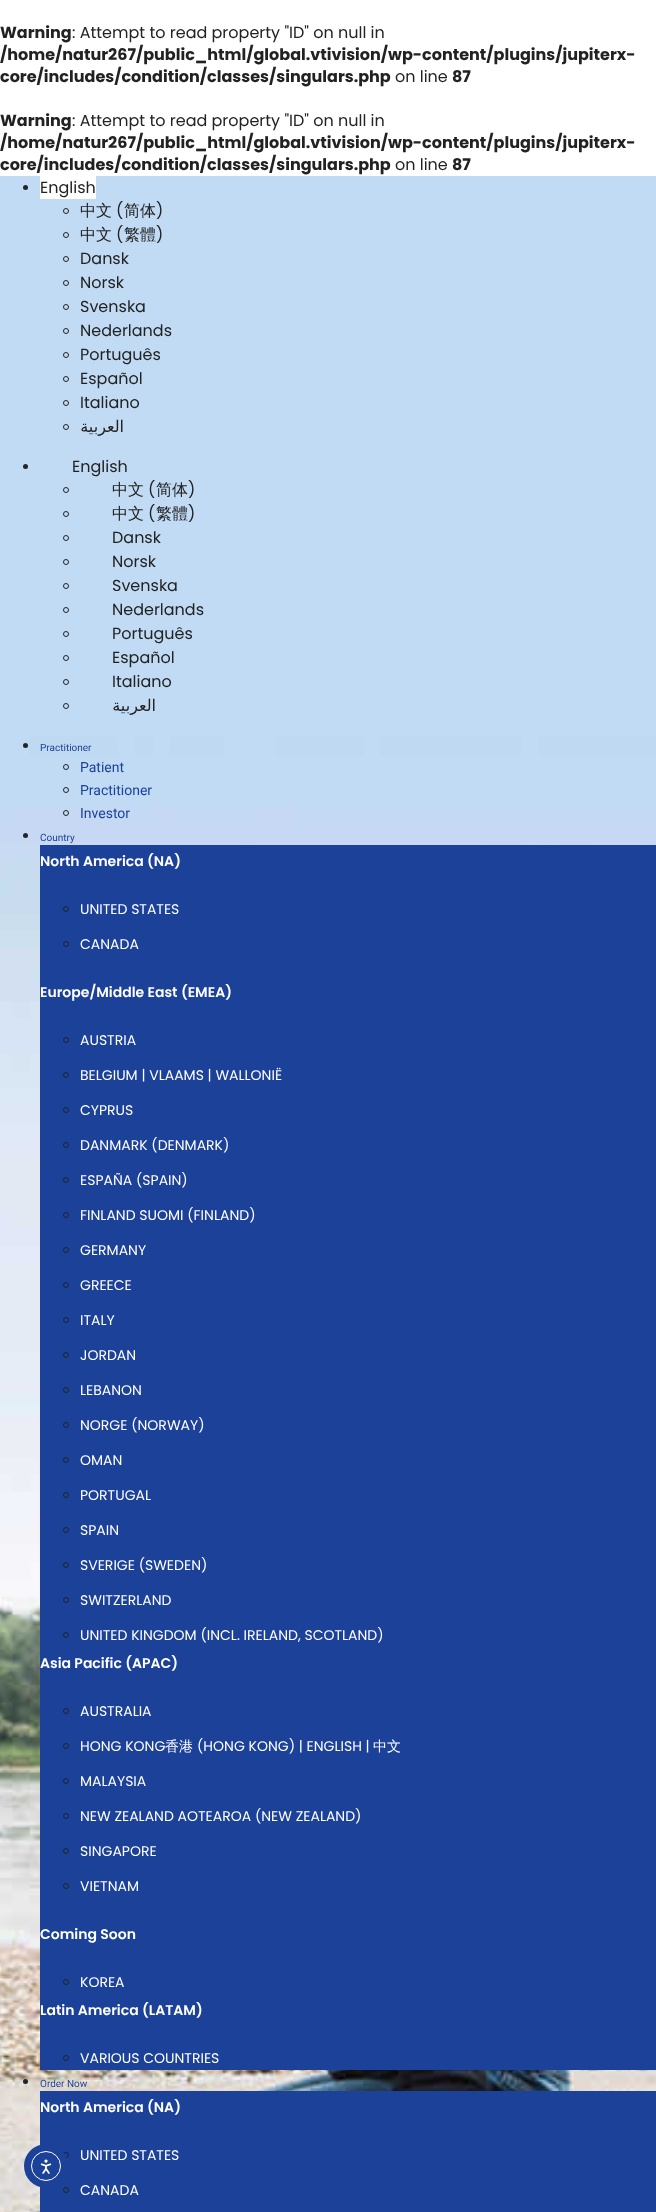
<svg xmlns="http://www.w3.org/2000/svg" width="656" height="2212">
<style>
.a{font:bold 16px Poppins;fill:#222}
.b{font:16px Poppins;fill:#222}
.c{font:500 16px WenQuanYi Zen Hei;fill:#222}
.d{font:16px DejaVu Sans;direction:rtl;fill:#222}
.e{font:10px Roboto;fill:#1c4199}
.f{font:14px Roboto;fill:#1c4199}
.g{font:600 14px Poppins;fill:#fff}
.h{font:14px Poppins;fill:#fff}
.i{font:500 14px WenQuanYi Zen Hei;fill:#fff}
</style>
<rect width="100%" height="100%" fill="#fff"/>
<image href="1.png" x="0" y="176" width="656" height="2036"/>
<circle fill="#212529" cx="25.5" cy="187.5" r="2.5"/>
<path fill="#fff" d="M40 176h56v23H40z"/>
<circle fill="none" stroke="#212529" cx="66" cy="211" r="2.5"/>
<circle fill="none" stroke="#212529" cx="66" cy="235" r="2.5"/>
<circle fill="none" stroke="#212529" cx="66" cy="259" r="2.5"/>
<circle fill="none" stroke="#212529" cx="66" cy="283" r="2.5"/>
<circle fill="none" stroke="#212529" cx="66" cy="307" r="2.5"/>
<circle fill="none" stroke="#212529" cx="66" cy="331" r="2.5"/>
<circle fill="none" stroke="#212529" cx="66" cy="355" r="2.5"/>
<circle fill="none" stroke="#212529" cx="66" cy="379" r="2.5"/>
<circle fill="none" stroke="#212529" cx="66" cy="403" r="2.5"/>
<circle fill="none" stroke="#212529" cx="66" cy="427" r="2.5"/>
<circle fill="#212529" cx="25.5" cy="466.5" r="2.5"/>
<circle fill="none" stroke="#212529" cx="66" cy="490" r="2.5"/>
<circle fill="none" stroke="#212529" cx="66" cy="514" r="2.5"/>
<circle fill="none" stroke="#212529" cx="66" cy="538" r="2.5"/>
<circle fill="none" stroke="#212529" cx="66" cy="562" r="2.5"/>
<circle fill="none" stroke="#212529" cx="66" cy="586" r="2.5"/>
<circle fill="none" stroke="#212529" cx="66" cy="610" r="2.5"/>
<circle fill="none" stroke="#212529" cx="66" cy="634" r="2.5"/>
<circle fill="none" stroke="#212529" cx="66" cy="658" r="2.5"/>
<circle fill="none" stroke="#212529" cx="66" cy="682" r="2.5"/>
<circle fill="none" stroke="#212529" cx="66" cy="706" r="2.5"/>
<circle fill="#212529" cx="25.5" cy="745.5" r="2.5"/>
<circle fill="none" stroke="#212529" cx="66" cy="767" r="2.5"/>
<circle fill="none" stroke="#212529" cx="66" cy="790" r="2.5"/>
<circle fill="none" stroke="#212529" cx="66" cy="813" r="2.5"/>
<circle fill="#212529" cx="25.5" cy="835.5" r="2.5"/>
<path fill="#1c4199" d="M40 845h616v1225H40z"/>
<circle fill="none" stroke="#212529" cx="66" cy="909" r="2.5"/>
<circle fill="none" stroke="#212529" cx="66" cy="944" r="2.5"/>
<circle fill="none" stroke="#212529" cx="66" cy="1040" r="2.5"/>
<circle fill="none" stroke="#212529" cx="66" cy="1075" r="2.5"/>
<circle fill="none" stroke="#212529" cx="66" cy="1110" r="2.5"/>
<circle fill="none" stroke="#212529" cx="66" cy="1145" r="2.5"/>
<circle fill="none" stroke="#212529" cx="66" cy="1180" r="2.5"/>
<circle fill="none" stroke="#212529" cx="66" cy="1215" r="2.5"/>
<circle fill="none" stroke="#212529" cx="66" cy="1250" r="2.5"/>
<circle fill="none" stroke="#212529" cx="66" cy="1285" r="2.5"/>
<circle fill="none" stroke="#212529" cx="66" cy="1320" r="2.5"/>
<circle fill="none" stroke="#212529" cx="66" cy="1355" r="2.5"/>
<circle fill="none" stroke="#212529" cx="66" cy="1390" r="2.5"/>
<circle fill="none" stroke="#212529" cx="66" cy="1425" r="2.5"/>
<circle fill="none" stroke="#212529" cx="66" cy="1460" r="2.5"/>
<circle fill="none" stroke="#212529" cx="66" cy="1495" r="2.5"/>
<circle fill="none" stroke="#212529" cx="66" cy="1530" r="2.5"/>
<circle fill="none" stroke="#212529" cx="66" cy="1565" r="2.5"/>
<circle fill="none" stroke="#212529" cx="66" cy="1600" r="2.5"/>
<circle fill="none" stroke="#212529" cx="66" cy="1635" r="2.5"/>
<circle fill="none" stroke="#212529" cx="66" cy="1711" r="2.5"/>
<circle fill="none" stroke="#212529" cx="66" cy="1746" r="2.5"/>
<circle fill="none" stroke="#212529" cx="66" cy="1781" r="2.5"/>
<circle fill="none" stroke="#212529" cx="66" cy="1816" r="2.5"/>
<circle fill="none" stroke="#212529" cx="66" cy="1851" r="2.5"/>
<circle fill="none" stroke="#212529" cx="66" cy="1886" r="2.5"/>
<circle fill="none" stroke="#212529" cx="66" cy="1982" r="2.5"/>
<circle fill="none" stroke="#212529" cx="66" cy="2058" r="2.5"/>
<circle fill="#212529" cx="25.5" cy="2081.5" r="2.5"/>
<path fill="#1c4199" d="M40 2091h616v121H40z"/>
<circle fill="none" stroke="#212529" cx="66" cy="2155" r="2.5"/>
<circle fill="none" stroke="#212529" cx="66" cy="2190" r="2.5"/>
<circle fill="#1c4199" cx="46" cy="2166" r="22"/>
<circle fill="none" stroke="#fff" cx="46" cy="2166" r="14.5"/>
<image href="2.png" x="40" y="2159" width="12" height="15"/>
<text class="a" x="0" y="38">Warning</text>
<text class="b" x="72" y="38">: Attempt to read property "ID" on null in</text>
<text class="a" x="0" y="60">/home/natur267/public_html/global.vtivision/wp-content/plugins/jupiterx-</text>
<text class="a" x="0" y="82">core/includes/condition/classes/singulars.php</text>
<text class="b" x="395" y="82">on line</text>
<text class="a" x="452" y="82">87</text>
<text class="a" x="0" y="126">Warning</text>
<text class="b" x="72" y="126">: Attempt to read property "ID" on null in</text>
<text class="a" x="0" y="148">/home/natur267/public_html/global.vtivision/wp-content/plugins/jupiterx-</text>
<text class="a" x="0" y="170">core/includes/condition/classes/singulars.php</text>
<text class="b" x="395" y="170">on line</text>
<text class="a" x="452" y="170">87</text>
<text class="b" x="40" y="193">English</text>
<text class="c" x="80" y="216">中文</text>
<text class="b" x="116" y="216">(</text>
<text class="c" x="124" y="216">简体</text>
<text class="b" x="156" y="216">)</text>
<text class="c" x="80" y="240">中文</text>
<text class="b" x="116" y="240">(</text>
<text class="c" x="124" y="240">繁體</text>
<text class="b" x="156" y="240">)</text>
<text class="b" x="80" y="264">Dansk</text>
<text class="b" x="80" y="288">Norsk</text>
<text class="b" x="80" y="312">Svenska</text>
<text class="b" x="80" y="336">Nederlands</text>
<text class="b" x="80" y="360">Português</text>
<text class="b" x="80" y="384">Español</text>
<text class="b" x="80" y="408">Italiano</text>
<text class="d" x="124" y="432">العربية</text>
<text class="b" x="72" y="472">English</text>
<text class="c" x="112" y="495">中文</text>
<text class="b" x="148" y="495">(</text>
<text class="c" x="156" y="495">简体</text>
<text class="b" x="188" y="495">)</text>
<text class="c" x="112" y="519">中文</text>
<text class="b" x="148" y="519">(</text>
<text class="c" x="156" y="519">繁體</text>
<text class="b" x="188" y="519">)</text>
<text class="b" x="112" y="543">Dansk</text>
<text class="b" x="112" y="567">Norsk</text>
<text class="b" x="112" y="591">Svenska</text>
<text class="b" x="112" y="615">Nederlands</text>
<text class="b" x="112" y="639">Português</text>
<text class="b" x="112" y="663">Español</text>
<text class="b" x="112" y="687">Italiano</text>
<text class="d" x="156" y="711">العربية</text>
<text class="e" x="40" y="751">Practitioner</text>
<text class="f" x="80" y="772">Patient</text>
<text class="f" x="80" y="795">Practitioner</text>
<text class="f" x="80" y="818">Investor</text>
<text class="e" x="40" y="841">Country</text>
<text class="g" x="40" y="866">North America (NA)</text>
<text class="h" x="80" y="914">UNITED STATES</text>
<text class="h" x="80" y="949">CANADA</text>
<text class="g" x="40" y="997">Europe/Middle East (EMEA)</text>
<text class="h" x="80" y="1045">AUSTRIA</text>
<text class="h" x="80" y="1080">BELGIUM | VLAAMS | WALLONIË</text>
<text class="h" x="80" y="1115">CYPRUS</text>
<text class="h" x="80" y="1150">DANMARK (DENMARK)</text>
<text class="h" x="80" y="1185">ESPAÑA (SPAIN)</text>
<text class="h" x="80" y="1220">FINLAND SUOMI (FINLAND)</text>
<text class="h" x="80" y="1255">GERMANY</text>
<text class="h" x="80" y="1290">GREECE</text>
<text class="h" x="80" y="1325">ITALY</text>
<text class="h" x="80" y="1360">JORDAN</text>
<text class="h" x="80" y="1395">LEBANON</text>
<text class="h" x="80" y="1430">NORGE (NORWAY)</text>
<text class="h" x="80" y="1465">OMAN</text>
<text class="h" x="80" y="1500">PORTUGAL</text>
<text class="h" x="80" y="1535">SPAIN</text>
<text class="h" x="80" y="1570">SVERIGE (SWEDEN)</text>
<text class="h" x="80" y="1605">SWITZERLAND</text>
<text class="h" x="80" y="1640">UNITED KINGDOM (INCL. IRELAND, SCOTLAND)</text>
<text class="g" x="40" y="1668">Asia Pacific (APAC)</text>
<text class="h" x="80" y="1716">AUSTRALIA</text>
<text class="h" x="80" y="1751">HONG KONG</text>
<text class="i" x="165" y="1751">香港</text>
<text class="h" x="197" y="1751">(HONG KONG) | ENGLISH |</text>
<text class="i" x="373" y="1751">中文</text>
<text class="h" x="80" y="1786">MALAYSIA</text>
<text class="h" x="80" y="1821">NEW ZEALAND AOTEAROA (NEW ZEALAND)</text>
<text class="h" x="80" y="1856">SINGAPORE</text>
<text class="h" x="80" y="1891">VIETNAM</text>
<text class="g" x="40" y="1939">Coming Soon</text>
<text class="h" x="80" y="1987">KOREA</text>
<text class="g" x="40" y="2015">Latin America (LATAM)</text>
<text class="h" x="80" y="2063">VARIOUS COUNTRIES</text>
<text class="e" x="40" y="2087">Order Now</text>
<text class="g" x="40" y="2112">North America (NA)</text>
<text class="h" x="80" y="2160">UNITED STATES</text>
<text class="h" x="80" y="2195">CANADA</text>
</svg>
